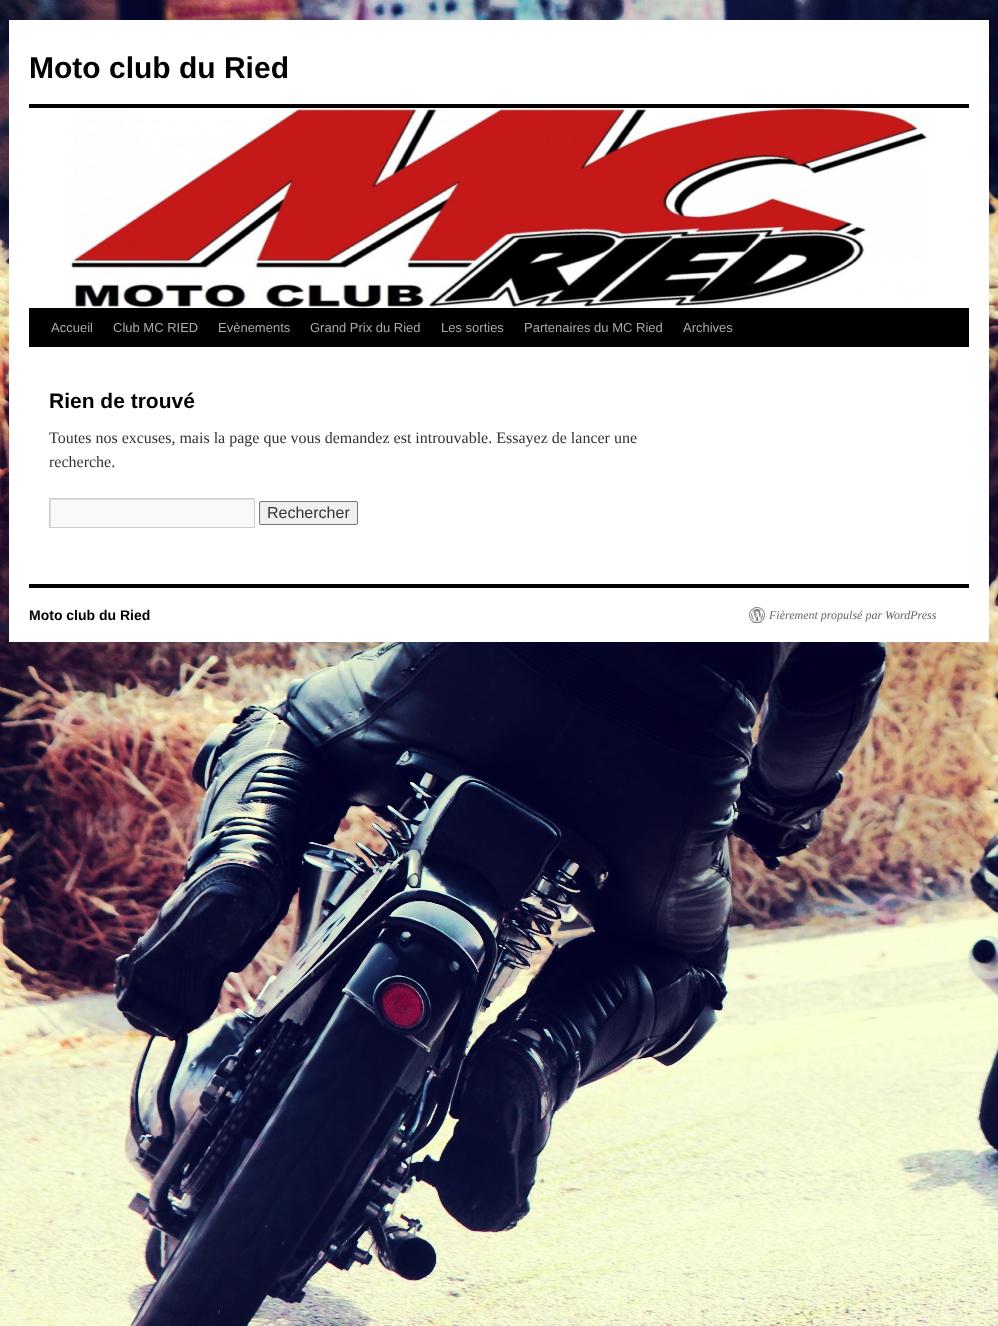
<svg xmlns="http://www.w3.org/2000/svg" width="998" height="1326">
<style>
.a{font:bold 30px Liberation Sans;fill:#000}
.b{font:13px Liberation Sans;fill:#aaa}
.c{font:bold 21px Liberation Sans;fill:#000}
.d{font:16px Liberation Serif;fill:#333}
.e{font:16px Liberation Sans;fill:#333}
.f{font:bold 14px Liberation Sans;fill:#000}
.g{font:italic 12px Liberation Serif;fill:#666}
</style>
<defs>
<clipPath id="clip1"><path d="M50 499h204v28H50z"/></clipPath>
</defs>
<rect width="100%" height="100%" fill="#fff"/>
<image href="1.png" x="0" y="0" width="998" height="1326"/>
<path fill="#fff" d="M9 20h980v622H9z"/>
<path fill="#000" d="M29 104h940v4H29z"/>
<path fill="#000" d="M29 308h940v39H29z"/>
<image href="2.png" x="70" y="108" width="858" height="200"/>
<path fill="#f9f9f9" d="M51 500h203v27H51z"/>
<g clip-path="url(#clip1)">
<path fill="#e0e0e0" fill-rule="evenodd" d="M-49 400h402v226h-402zm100 100h204v28h-204z"/>
</g>
<path fill="none" stroke="#ccc" d="M49.5 498.5h205v29H49.5z"/>
<rect fill="#efefef" stroke="#767676" x="259.5" y="501.5" width="98" height="23" rx="1.5"/>
<path fill="#000" d="M29 584h940v4H29z"/>
<image href="3.png" x="749" y="607" width="16" height="16"/>
<text class="a" x="29" y="78">Moto club du Ried</text>
<text class="b" x="51" y="332">Accueil</text>
<text class="b" x="113" y="332">Club MC RIED</text>
<text class="b" x="218" y="332">Evènements</text>
<text class="b" x="310" y="332">Grand Prix du Ried</text>
<text class="b" x="441" y="332">Les sorties</text>
<text class="b" x="524" y="332">Partenaires du MC Ried</text>
<text class="b" x="683" y="332">Archives</text>
<text class="c" x="49" y="408">Rien de trouvé</text>
<text class="d" x="49" y="443">Toutes nos excuses, mais la page que vous demandez est introuvable. Essayez de lancer une</text>
<text class="d" x="49" y="467">recherche.</text>
<text class="e" x="267" y="518">Rechercher</text>
<text class="f" x="29" y="620">Moto club du Ried</text>
<text class="g" x="769" y="619">Fièrement propulsé par WordPress</text>
</svg>
